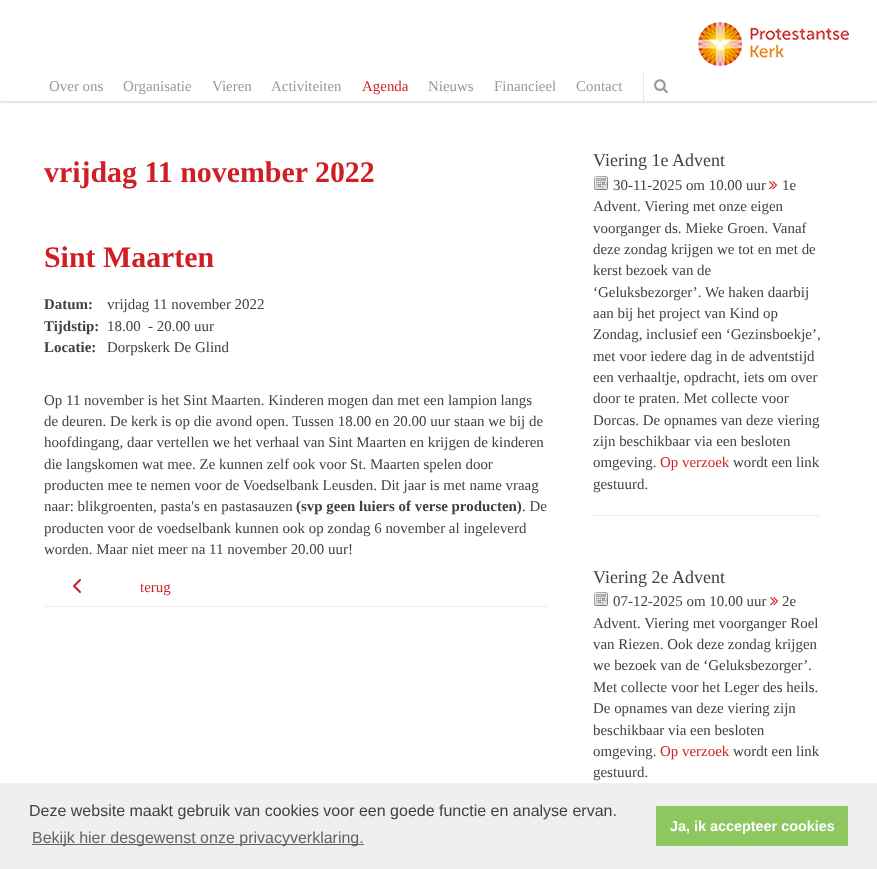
<svg xmlns="http://www.w3.org/2000/svg" width="877" height="869">
<style>
.a{font:14.95px Liberation Serif;fill:#999}
.b{font:14.95px Liberation Serif;fill:#cf1f25}
.c{font:bold 29.9px Liberation Serif;fill:#cf1f25}
.d{font:bold 14.95px Liberation Serif;fill:#414141}
.e{font:14.95px Liberation Serif;fill:#414141}
.f{font:18px Liberation Serif;fill:#414141}
.g{font:16px Liberation Sans;fill:#414141}
.h{font:16px Liberation Sans;fill:#636363}
.i{font:bold 14.4px Liberation Sans;fill:#fff}
</style>
<defs>
<clipPath id="clip1"><path d="M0 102h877v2H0z"/></clipPath>
</defs>
<rect width="100%" height="100%" fill="#fff"/>
<g clip-path="url(#clip1)">
<path fill="#00000038" filter="blur(1.5px)" d="M0 0h877v102H0z"/>
</g>
<path fill="#e7e7e7" d="M0 101h877v1H0z"/>
<image href="1.png" x="698" y="22" width="151" height="44"/>
<path fill="#e7e7e7" d="M643 71h1v30H643z"/>
<image href="2.png" x="654" y="79" width="14" height="15"/>
<path fill="#eee" d="M44 606h505v1H44z"/>
<path fill="none" stroke="#cf1f25" stroke-width="2" stroke-linecap="round" stroke-linejoin="round" d="M80 592l-6-6l6-6"/>
<image href="3.png" x="594" y="176" width="14" height="14"/>
<image href="4.png" x="769" y="181" width="9" height="9"/>
<path fill="#eee" d="M593 515h228v1H593z"/>
<image href="3.png" x="594" y="592" width="14" height="14"/>
<image href="4.png" x="770" y="597" width="9" height="9"/>
<path fill="#efefef" d="M0 783h877v86H0z"/>
<path fill="#636363" d="M32 844h332v1H32z"/>
<path fill="#8ec760" d="M656 806h192v40H656z"/>
<text class="a" x="49" y="91">Over ons</text>
<text class="a" x="123" y="91">Organisatie</text>
<text class="a" x="212" y="91">Vieren</text>
<text class="a" x="271" y="91">Activiteiten</text>
<text class="b" x="362" y="91">Agenda</text>
<text class="a" x="428" y="91">Nieuws</text>
<text class="a" x="494" y="91">Financieel</text>
<text class="a" x="576" y="91">Contact</text>
<text class="c" x="44" y="182">vrijdag 11 november 2022</text>
<text class="c" x="44" y="267">Sint Maarten</text>
<text class="d" x="44" y="309">Datum:</text>
<text class="e" x="107" y="309">vrijdag 11 november 2022</text>
<text class="d" x="44" y="331">Tijdstip:</text>
<text class="e" x="107" y="331">18.00</text>
<text class="e" x="148" y="331">- 20.00 uur</text>
<text class="d" x="44" y="352">Locatie:</text>
<text class="e" x="107" y="352">Dorpskerk De Glind</text>
<text class="e" x="44" y="405">Op 11 november is het Sint Maarten. Kinderen mogen dan met een lampion langs</text>
<text class="e" x="44" y="426">de deuren. De kerk is op die avond open. Tussen 18.00 en 20.00 uur staan we bij de</text>
<text class="e" x="44" y="447">hoofdingang, daar vertellen we het verhaal van Sint Maarten en krijgen de kinderen</text>
<text class="e" x="44" y="469">die langskomen wat mee. Ze kunnen zelf ook voor St. Maarten spelen door</text>
<text class="e" x="44" y="490">producten mee te nemen voor de Voedselbank Leusden. Dit jaar is met name vraag</text>
<text class="e" x="44" y="511">naar: blikgroenten, pasta's en pastasauzen</text>
<text class="d" x="296" y="511">(svp geen luiers of verse producten)</text>
<text class="e" x="522" y="511">. De</text>
<text class="e" x="44" y="533">producten voor de voedselbank kunnen ook op zondag 6 november al ingeleverd</text>
<text class="e" x="44" y="554">worden. Maar niet meer na 11 november 20.00 uur!</text>
<text class="b" x="140" y="592">terug</text>
<text class="f" x="593" y="166">Viering 1e Advent</text>
<text class="e" x="613" y="190">30-11-2025 om 10.00 uur</text>
<text class="e" x="782" y="190">1e</text>
<text class="e" x="593" y="211">Advent. Viering met onze eigen</text>
<text class="e" x="593" y="233">voorganger ds. Mieke Groen. Vanaf</text>
<text class="e" x="593" y="254">deze zondag krijgen we tot en met de</text>
<text class="e" x="593" y="275">kerst bezoek van de</text>
<text class="e" x="593" y="297">‘Geluksbezorger’. We haken daarbij</text>
<text class="e" x="593" y="318">aan bij het project van Kind op</text>
<text class="e" x="593" y="339">Zondag, inclusief een ‘Gezinsboekje’,</text>
<text class="e" x="593" y="361">met voor iedere dag in de adventstijd</text>
<text class="e" x="593" y="382">een verhaaltje, opdracht, iets om over</text>
<text class="e" x="593" y="403">door te praten. Met collecte voor</text>
<text class="e" x="593" y="425">Dorcas. De opnames van deze viering</text>
<text class="e" x="593" y="446">zijn beschikbaar via een besloten</text>
<text class="e" x="593" y="467">omgeving.</text>
<text class="b" x="660" y="467">Op verzoek</text>
<text class="e" x="733" y="467">wordt een link</text>
<text class="e" x="593" y="489">gestuurd.</text>
<text class="f" x="593" y="583">Viering 2e Advent</text>
<text class="e" x="613" y="606">07-12-2025 om 10.00 uur</text>
<text class="e" x="782" y="606">2e</text>
<text class="e" x="593" y="628">Advent. Viering met voorganger Roel</text>
<text class="e" x="593" y="649">van Riezen. Ook deze zondag krijgen</text>
<text class="e" x="593" y="670">we bezoek van de ‘Geluksbezorger’.</text>
<text class="e" x="593" y="692">Met collecte voor het Leger des heils.</text>
<text class="e" x="593" y="713">De opnames van deze viering zijn</text>
<text class="e" x="593" y="735">beschikbaar via een besloten</text>
<text class="e" x="593" y="756">omgeving.</text>
<text class="b" x="660" y="756">Op verzoek</text>
<text class="e" x="733" y="756">wordt een link</text>
<text class="e" x="593" y="777">gestuurd.</text>
<text class="g" x="29" y="816">Deze website maakt gebruik van cookies voor een goede functie en analyse ervan.</text>
<text class="h" x="32" y="843">Bekijk hier desgewenst onze privacyverklaring.</text>
<text class="i" x="670" y="831">Ja, ik accepteer cookies</text>
</svg>
